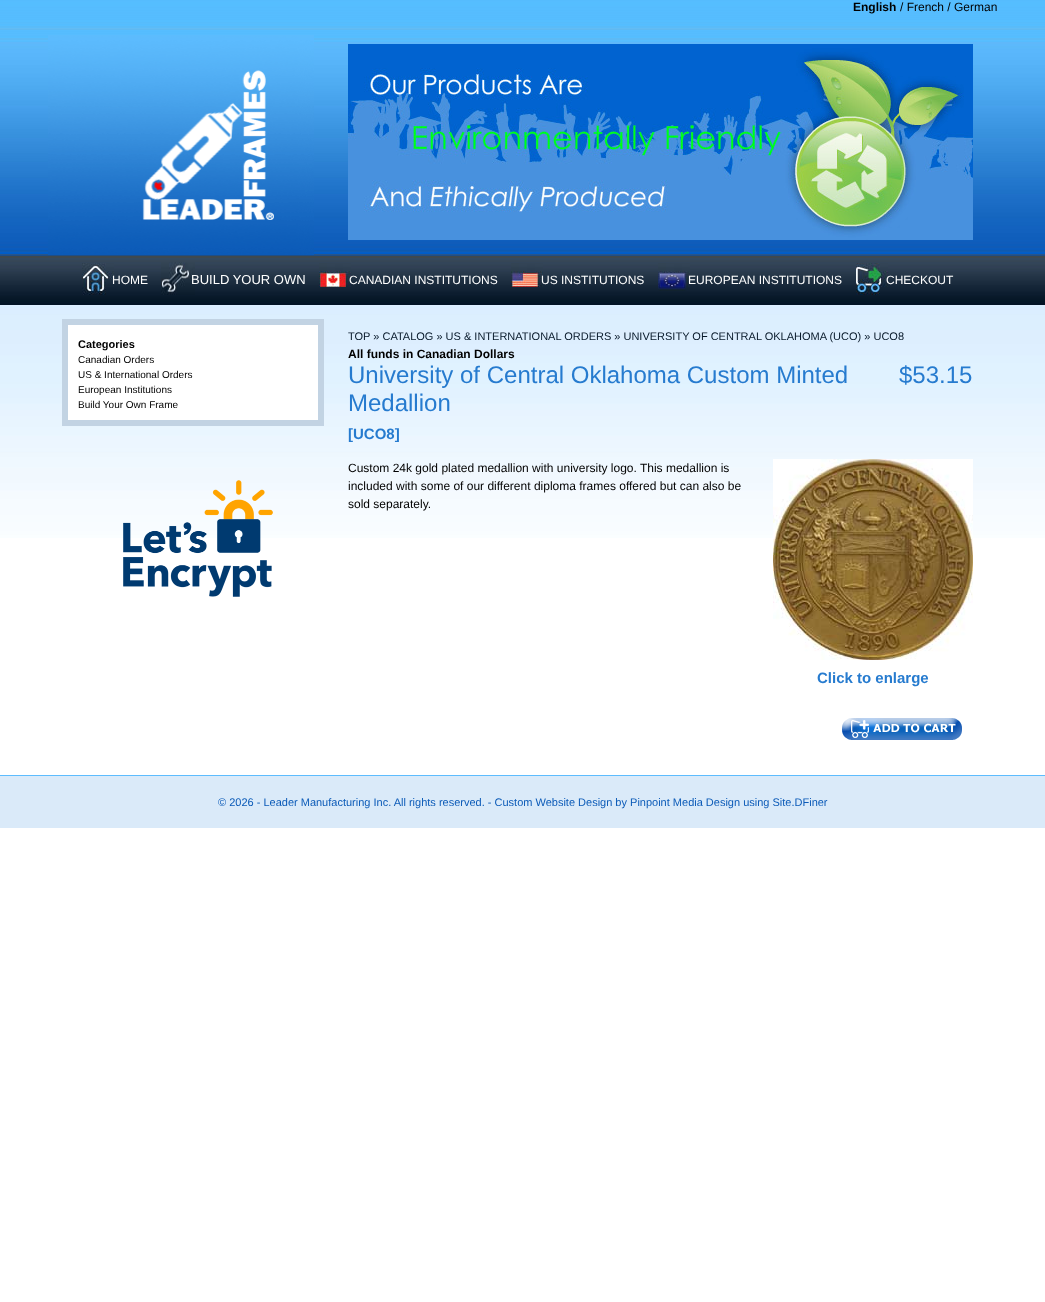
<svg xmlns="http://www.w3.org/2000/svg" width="1045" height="1302">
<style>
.a{font:bold 12px Liberation Sans;fill:#000}
.b{font:12px Liberation Sans;fill:#000}
.c{font:12px Liberation Sans;fill:#fff}
.d{font:13px Liberation Sans;fill:#fff}
.e{font:bold 11px Liberation Sans;fill:#000}
.f{font:10px Liberation Sans;fill:#000}
.g{font:11px Liberation Sans;fill:#071829}
.h{font:24px Liberation Sans;fill:#267bcf}
.i{font:bold 15px Liberation Sans;fill:#267bcf}
.j{font:11px Liberation Sans;fill:#0c5bb8}
</style>
<rect width="100%" height="100%" fill="#fff"/>
<image href="1.png" x="0" y="0" width="1045" height="538"/>
<image href="2.png" x="48" y="35" width="266" height="220"/>
<image href="3.png" x="348" y="44" width="625" height="196"/>
<image href="4.png" x="82" y="263" width="32" height="32"/>
<image href="5.png" x="161" y="262" width="34" height="33"/>
<image href="6.png" x="319" y="263" width="32" height="24"/>
<image href="7.png" x="511" y="263" width="32" height="24"/>
<image href="8.png" x="658" y="263" width="32" height="28"/>
<image href="9.png" x="856" y="263" width="32" height="32"/>
<path fill="#fff" stroke="#c2d3e3" stroke-width="6" d="M65 322h256v101H65z"/>
<image href="10.png" x="123" y="480" width="150" height="117"/>
<image href="11.png" x="773" y="459" width="200" height="201"/>
<image href="12.png" x="842" y="718" width="120" height="22"/>
<path fill="#daeaf9" d="M0 776h1045v52H0z"/>
<path fill="#5dbcfe" d="M0 775h1045v1H0z"/>
<text class="a" x="853" y="11">English</text>
<text class="b" x="900" y="11">/ French / German</text>
<text class="c" x="112" y="284">HOME</text>
<text class="d" x="191" y="284">BUILD YOUR OWN</text>
<text class="c" x="349" y="284">CANADIAN INSTITUTIONS</text>
<text class="c" x="541" y="284">US INSTITUTIONS</text>
<text class="c" x="688" y="284">EUROPEAN INSTITUTIONS</text>
<text class="c" x="886" y="284">CHECKOUT</text>
<text class="e" x="78" y="348">Categories</text>
<text class="f" x="78" y="363">Canadian Orders</text>
<text class="f" x="78" y="378">US &amp; International Orders</text>
<text class="f" x="78" y="393">European Institutions</text>
<text class="f" x="78" y="408">Build Your Own Frame</text>
<text class="g" x="348" y="340">TOP » CATALOG » US &amp; INTERNATIONAL ORDERS » UNIVERSITY OF CENTRAL OKLAHOMA (UCO) » UCO8</text>
<text class="a" x="348" y="358">All funds in Canadian Dollars</text>
<text class="h" x="348" y="383">University of Central Oklahoma Custom Minted</text>
<text class="h" x="348" y="411">Medallion</text>
<text class="i" x="348" y="439">[UCO8]</text>
<text class="h" x="899" y="383">$53.15</text>
<text class="b" x="348" y="472">Custom 24k gold plated medallion with university logo. This medallion is</text>
<text class="b" x="348" y="490">included with some of our different diploma frames offered but can also be</text>
<text class="b" x="348" y="508">sold separately.</text>
<text class="i" x="817" y="683">Click to enlarge</text>
<text class="j" x="218" y="806">© 2026 - Leader Manufacturing Inc. All rights reserved. - Custom Website Design by Pinpoint Media Design using Site.DFiner</text>
</svg>
